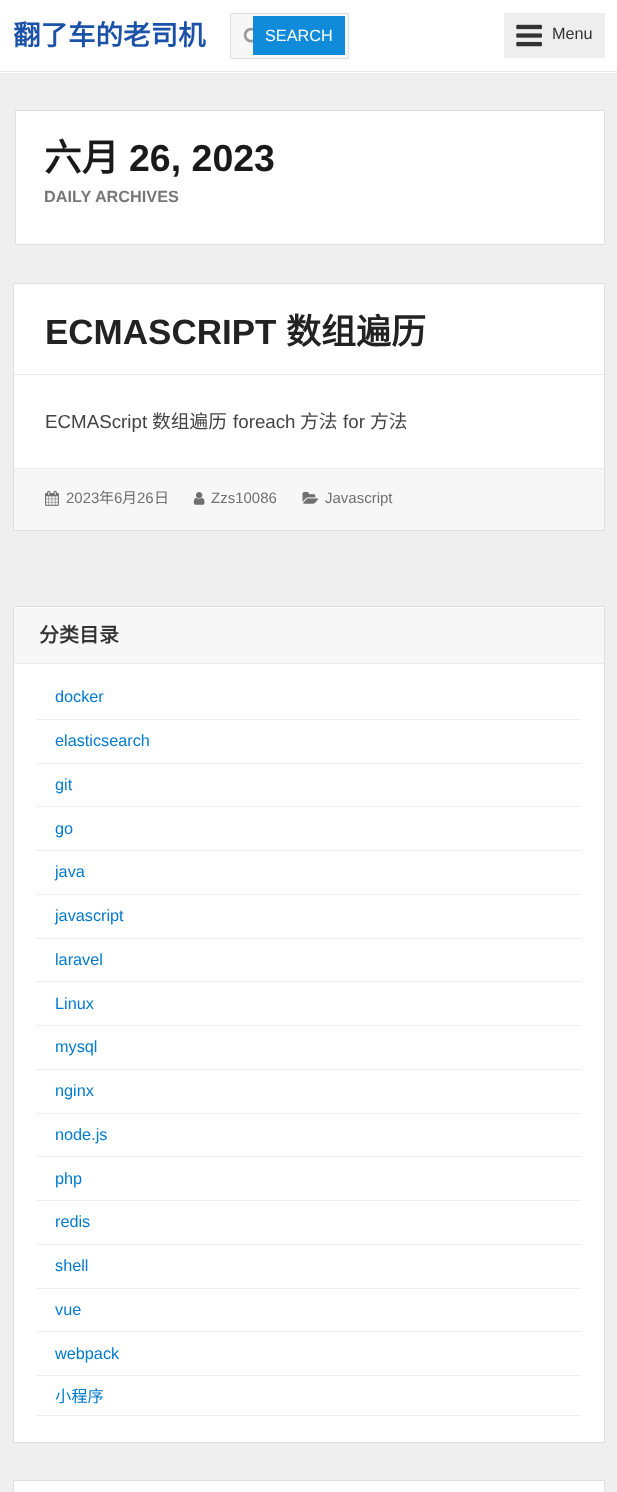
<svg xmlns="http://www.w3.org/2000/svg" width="617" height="1492">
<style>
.a{font:bold 27.5px Noto Sans CJK SC;fill:#1b52a7}
.b{font:16.25px Liberation Sans;fill:#fff}
.c{font:16.25px Liberation Sans;fill:#333}
.d{font:bold 37.5px Noto Sans CJK SC;fill:#1a1a1a}
.e{font:bold 37.5px Liberation Sans;fill:#1a1a1a}
.f{font:bold 16.25px Liberation Sans;fill:#777}
.g{font:bold 35px Liberation Sans;fill:#222}
.h{font:bold 35px Noto Sans CJK SC;fill:#222}
.i{font:18.75px Liberation Sans;fill:#444}
.j{font:18.75px Noto Sans CJK SC;fill:#444}
.k{font:15px Liberation Sans;fill:#707070}
.l{font:15px Noto Sans CJK SC;fill:#707070}
.m{font:bold 20px Noto Sans CJK SC;fill:#333}
.n{font:16.25px Liberation Sans;fill:#007acc}
.o{font:16.25px Noto Sans CJK SC;fill:#007acc}
</style>
<rect width="100%" height="100%" fill="#efefef"/>
<path fill="#fff" d="M0 0h617v73H0z"/>
<path fill="#e5e5e5" d="M0 71h617v1H0z"/>
<path fill="#f7f7f7" stroke="#ddd" d="M230.5 13.5h118v45H230.5z"/>
<image href="1.png" x="243" y="27" width="10" height="16"/>
<path fill="#0f8bda" d="M253 16h92v39H253z"/>
<path fill="#eee" d="M504 13h101v45H504z"/>
<image href="2.png" x="516" y="24" width="26" height="23"/>
<path fill="#fff" stroke="#dedede" d="M15.5 110.5h589v134H15.5z"/>
<path fill="#fff" d="M14 284h590v184H14z"/>
<path fill="none" stroke="#dedede" d="M13.5 283.5h591v247H13.5z"/>
<path fill="#eaeaea" d="M14 374h590v1H14z"/>
<path fill="#f7f7f7" d="M14 469h590v61H14z"/>
<path fill="#eaeaea" d="M14 468h590v1H14z"/>
<image href="3.png" x="45" y="490" width="14" height="16"/>
<image href="4.png" x="193" y="492" width="12" height="13"/>
<image href="5.png" x="302" y="491" width="17" height="13"/>
<path fill="#fff" stroke="#dedede" d="M13.5 606.5h591v836H13.5z"/>
<path fill="#f7f7f7" d="M14 608h590v55H14z"/>
<path fill="#eaeaea" d="M14 663h590v1H14z"/>
<path fill="#eee" d="M36 719h545v1H36z"/>
<path fill="#eee" d="M36 763h545v1H36z"/>
<path fill="#eee" d="M36 806h545v1H36z"/>
<path fill="#eee" d="M36 850h545v1H36z"/>
<path fill="#eee" d="M36 894h545v1H36z"/>
<path fill="#eee" d="M36 938h545v1H36z"/>
<path fill="#eee" d="M36 981h545v1H36z"/>
<path fill="#eee" d="M36 1025h545v1H36z"/>
<path fill="#eee" d="M36 1069h545v1H36z"/>
<path fill="#eee" d="M36 1113h545v1H36z"/>
<path fill="#eee" d="M36 1156h545v1H36z"/>
<path fill="#eee" d="M36 1200h545v1H36z"/>
<path fill="#eee" d="M36 1244h545v1H36z"/>
<path fill="#eee" d="M36 1288h545v1H36z"/>
<path fill="#eee" d="M36 1331h545v1H36z"/>
<path fill="#eee" d="M36 1375h545v1H36z"/>
<path fill="#eee" d="M36 1415h545v1H36z"/>
<path fill="#fff" stroke="#dedede" d="M13.5 1480.5h591v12H13.5z"/>
<text class="a" x="13" y="45">翻了车的老司机</text>
<text class="b" x="265" y="41">SEARCH</text>
<text class="c" x="552" y="39">Menu</text>
<text class="d" x="44" y="171">六月</text>
<text class="e" x="129" y="171">26, 2023</text>
<text class="f" x="44" y="202">DAILY ARCHIVES</text>
<text class="g" x="45" y="344">ECMASCRIPT</text>
<text class="h" x="286" y="344">数组遍历</text>
<text class="i" x="45" y="428">ECMAScript</text>
<text class="j" x="152" y="428">数组遍历</text>
<text class="i" x="233" y="428">foreach</text>
<text class="j" x="300" y="428">方法</text>
<text class="i" x="343" y="428">for</text>
<text class="j" x="370" y="428">方法</text>
<text class="k" x="66" y="503">2023</text>
<text class="l" x="99" y="503">年</text>
<text class="k" x="114" y="503">6</text>
<text class="l" x="122" y="503">月</text>
<text class="k" x="137" y="503">26</text>
<text class="l" x="154" y="503">日</text>
<text class="k" x="211" y="503">Zzs10086</text>
<text class="k" x="325" y="503">Javascript</text>
<text class="m" x="39" y="642">分类目录</text>
<text class="n" x="55" y="702">docker</text>
<text class="n" x="55" y="746">elasticsearch</text>
<text class="n" x="55" y="790">git</text>
<text class="n" x="55" y="834">go</text>
<text class="n" x="55" y="877">java</text>
<text class="n" x="55" y="921">javascript</text>
<text class="n" x="55" y="965">laravel</text>
<text class="n" x="55" y="1009">Linux</text>
<text class="n" x="55" y="1052">mysql</text>
<text class="n" x="55" y="1096">nginx</text>
<text class="n" x="55" y="1140">node.js</text>
<text class="n" x="55" y="1184">php</text>
<text class="n" x="55" y="1227">redis</text>
<text class="n" x="55" y="1271">shell</text>
<text class="n" x="55" y="1315">vue</text>
<text class="n" x="55" y="1359">webpack</text>
<text class="o" x="55" y="1402">小程序</text>
</svg>
